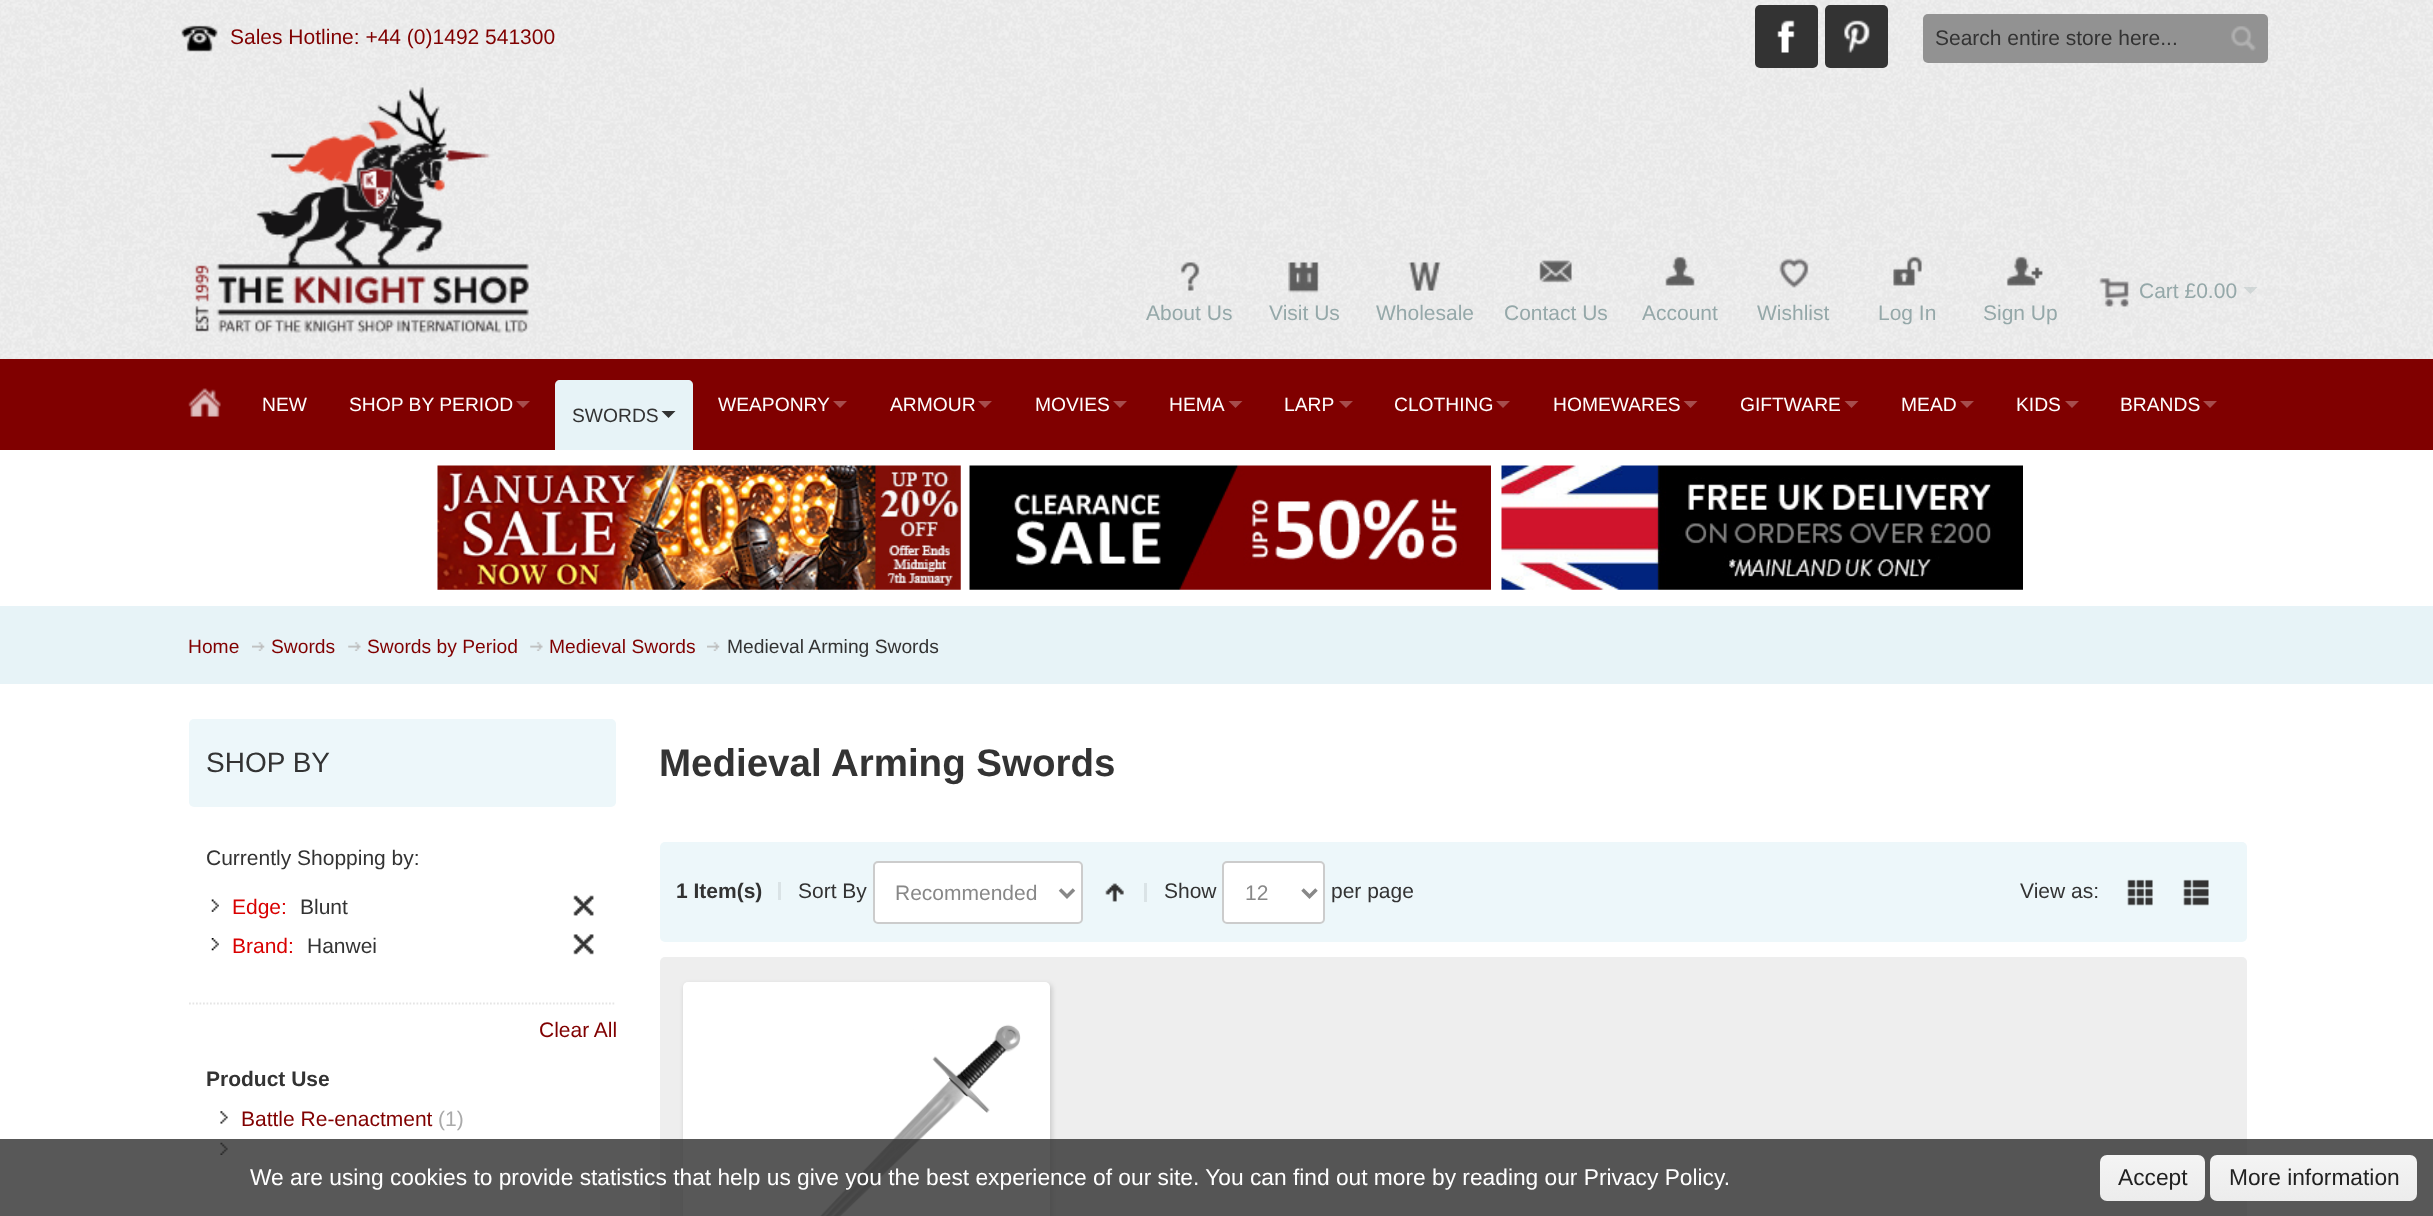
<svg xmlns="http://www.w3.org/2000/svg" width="2433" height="1216">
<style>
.a{font:21px Liberation Sans;fill:#800000}
.b{font:21px Liberation Sans;fill:#333}
.c{font:21px Liberation Sans;fill:#95a8a9}
.d{font:19.25px Liberation Sans;fill:#fff}
.e{font:19.25px Liberation Sans;fill:#333}
.f{font:19.25px Liberation Sans;fill:#800000}
.g{font:28px Liberation Sans;fill:#333}
.h{font:21px Liberation Sans;fill:#d90000}
.i{font:bold 21px Liberation Sans;fill:#333}
.j{font:21px Liberation Sans;fill:#aaa}
.k{font:bold 38.5px Liberation Sans;fill:#333}
.l{font:21px Liberation Sans;fill:#888}
.m{font:22.75px Liberation Sans;fill:#fff}
.n{font:22.75px Liberation Sans;fill:#222}
</style>
<defs>
<linearGradient id="g1" gradientUnits="userSpaceOnUse" x1="2153" y1="1155" x2="2153" y2="1201"><stop offset="0" stop-color="#f4f4f4"/><stop offset="1" stop-color="#ececec"/></linearGradient>
<linearGradient id="g2" gradientUnits="userSpaceOnUse" x1="2314" y1="1155" x2="2314" y2="1201"><stop offset="0" stop-color="#f4f4f4"/><stop offset="1" stop-color="#ececec"/></linearGradient>
</defs>
<rect width="100%" height="100%" fill="#fff"/>
<path fill="#f0f0f0" d="M0 0h2433v359H0z"/>
<image href="1.png" x="0" y="0" width="2433" height="359"/>
<image href="2.png" x="181" y="25" width="37" height="27"/>
<rect fill="#333" x="1755" y="5" width="63" height="63" rx="5"/>
<image href="3.png" x="1777" y="20" width="18" height="33"/>
<rect fill="#333" x="1825" y="5" width="63" height="63" rx="5"/>
<image href="4.png" x="1844" y="20" width="26" height="33"/>
<rect fill="#929292" x="1923" y="14" width="345" height="49" rx="5"/>
<image href="5.png" x="2231" y="26" width="25" height="25"/>
<image href="6.png" x="195" y="87" width="334" height="246"/>
<image href="7.png" x="2099" y="278" width="30" height="29"/>
<path fill="#95a8a94d" d="M2243.5 287h14l-7 7z"/>
<image href="8.png" x="1180" y="262" width="20" height="29"/>
<image href="9.png" x="1288" y="262" width="31" height="31"/>
<image href="10.png" x="1408" y="262" width="33" height="29"/>
<image href="11.png" x="1539" y="260" width="33" height="23"/>
<image href="12.png" x="1665" y="256" width="30" height="30"/>
<image href="13.png" x="1779" y="258" width="30" height="30"/>
<image href="14.png" x="1893" y="256" width="29" height="30"/>
<image href="15.png" x="2006" y="256" width="37" height="30"/>
<path fill="#800000" d="M0 359h2433v91H0z"/>
<image href="16.png" x="188" y="388" width="33" height="29"/>
<path fill="#a64d4d" d="M516 401h14l-7 7z"/>
<path fill="#a64d4d" d="M833 401h14l-7 7z"/>
<path fill="#a64d4d" d="M978 401h14l-7 7z"/>
<path fill="#a64d4d" d="M1113 401h14l-7 7z"/>
<path fill="#a64d4d" d="M1228.5 401h14l-7 7z"/>
<path fill="#a64d4d" d="M1339 401h14l-7 7z"/>
<path fill="#a64d4d" d="M1496 401h14l-7 7z"/>
<path fill="#a64d4d" d="M1683.5 401h14l-7 7z"/>
<path fill="#a64d4d" d="M1844.5 401h14l-7 7z"/>
<path fill="#a64d4d" d="M1960 401h14l-7 7z"/>
<path fill="#a64d4d" d="M2065 401h14l-7 7z"/>
<path fill="#a64d4d" d="M2203 401h14l-7 7z"/>
<path fill="#e7f3f7" d="M560 380h128c3 0 5 2 5 5v65h-138v-65c0-3 2-5 5-5z"/>
<path fill="#333" d="M661.5 411h14l-7 7z"/>
<image href="17.png" x="437" y="465" width="524" height="125"/>
<image href="18.png" x="969" y="465" width="522" height="125"/>
<image href="19.png" x="1501" y="465" width="522" height="125"/>
<path fill="#e7f3f7" d="M0 606h2433v78H0z"/>
<image href="20.png" x="252" y="642" width="13" height="9"/>
<image href="21.png" x="348" y="642" width="13" height="9"/>
<image href="21.png" x="530" y="642" width="13" height="9"/>
<image href="22.png" x="707" y="642" width="13" height="9"/>
<rect fill="#edf7fa" x="189" y="719" width="427" height="88" rx="5"/>
<image href="23.png" x="211" y="899" width="8" height="13"/>
<image href="24.png" x="573" y="895" width="21" height="21"/>
<image href="25.png" x="211" y="938" width="8" height="13"/>
<image href="26.png" x="573" y="934" width="21" height="21"/>
<path fill="none" stroke="#e5e5e5" stroke-width="1.8" stroke-dasharray="1.75 1.75" d="M189 1003.5h427"/>
<image href="27.png" x="220" y="1111" width="8" height="13"/>
<image href="28.png" x="220" y="1142" width="8" height="13"/>
<rect fill="#edf7fa" x="660" y="842" width="1587" height="100" rx="5"/>
<path fill="#dae3e6" d="M778 882h3v18H778z"/>
<path fill="#dae3e6" d="M1144 883h3v19H1144z"/>
<rect fill="#fff" stroke="#ccc" stroke-width="2" x="874" y="862" width="208" height="61" rx="4"/>
<path fill="none" stroke="#888" stroke-width="3.5" d="M1060 889.5l7 7l7-7"/>
<image href="29.png" x="1105" y="883" width="19" height="19"/>
<rect fill="#fff" stroke="#ccc" stroke-width="2" x="1223" y="862" width="101" height="61" rx="4"/>
<path fill="none" stroke="#888" stroke-width="3.5" d="M1302.5 889.5l7 7l7-7"/>
<image href="30.png" x="2127" y="879" width="26" height="27"/>
<image href="31.png" x="2183" y="879" width="26" height="27"/>
<rect fill="#eee" x="660" y="957" width="1587" height="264" rx="5"/>
<rect fill="#00000026" filter="blur(2.5px)" x="684" y="984" width="368" height="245" rx="5"/>
<rect fill="#fff" x="683" y="982" width="367" height="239" rx="5"/>
<image href="32.png" x="820" y="1024" width="201" height="192"/>
<path fill="#2e2e2ecc" d="M0 1139h2433v77H0z"/>
<rect fill="url(#g1)" x="2100" y="1155" width="105" height="46" rx="7"/>
<rect fill="url(#g2)" x="2210" y="1155" width="207" height="46" rx="7"/>
<text class="a" x="230" y="44">Sales Hotline: +44 (0)1492 541300</text>
<text class="b" x="1935" y="45">Search entire store here...</text>
<text class="c" x="2139" y="298">Cart £0.00</text>
<text class="c" x="1146" y="320">About Us</text>
<text class="c" x="1269" y="320">Visit Us</text>
<text class="c" x="1376" y="320">Wholesale</text>
<text class="c" x="1504" y="320">Contact Us</text>
<text class="c" x="1642" y="320">Account</text>
<text class="c" x="1757" y="320">Wishlist</text>
<text class="c" x="1878" y="320">Log In</text>
<text class="c" x="1983" y="320">Sign Up</text>
<text class="d" x="262" y="411">NEW</text>
<text class="d" x="349" y="411">SHOP BY PERIOD</text>
<text class="d" x="718" y="411">WEAPONRY</text>
<text class="d" x="890" y="411">ARMOUR</text>
<text class="d" x="1035" y="411">MOVIES</text>
<text class="d" x="1169" y="411">HEMA</text>
<text class="d" x="1284" y="411">LARP</text>
<text class="d" x="1394" y="411">CLOTHING</text>
<text class="d" x="1553" y="411">HOMEWARES</text>
<text class="d" x="1740" y="411">GIFTWARE</text>
<text class="d" x="1901" y="411">MEAD</text>
<text class="d" x="2016" y="411">KIDS</text>
<text class="d" x="2120" y="411">BRANDS</text>
<text class="e" x="572" y="422">SWORDS</text>
<text class="f" x="188" y="653">Home</text>
<text class="f" x="271" y="653">Swords</text>
<text class="f" x="367" y="653">Swords by Period</text>
<text class="f" x="549" y="653">Medieval Swords</text>
<text class="e" x="727" y="653">Medieval Arming Swords</text>
<text class="g" x="206" y="772">SHOP BY</text>
<text class="b" x="206" y="865">Currently Shopping by:</text>
<text class="h" x="232" y="914">Edge:</text>
<text class="b" x="300" y="914">Blunt</text>
<text class="h" x="232" y="953">Brand:</text>
<text class="b" x="307" y="953">Hanwei</text>
<text class="a" x="539" y="1037">Clear All</text>
<text class="i" x="206" y="1086">Product Use</text>
<text class="a" x="241" y="1126">Battle Re-enactment</text>
<text class="j" x="438" y="1126">(1)</text>
<text class="k" x="659" y="776">Medieval Arming Swords</text>
<text class="i" x="676" y="898">1 Item(s)</text>
<text class="b" x="798" y="898">Sort By</text>
<text class="l" x="895" y="900">Recommended</text>
<text class="b" x="1164" y="898">Show</text>
<text class="l" x="1245" y="900">12</text>
<text class="b" x="1331" y="898">per page</text>
<text class="b" x="2020" y="898">View as:</text>
<text class="m" x="250" y="1185">We are using cookies to provide statistics that help us give you the best experience of our site. You can find out more by reading our Privacy Policy.</text>
<text class="n" x="2118" y="1185">Accept</text>
<text class="n" x="2229" y="1185">More information</text>
</svg>
